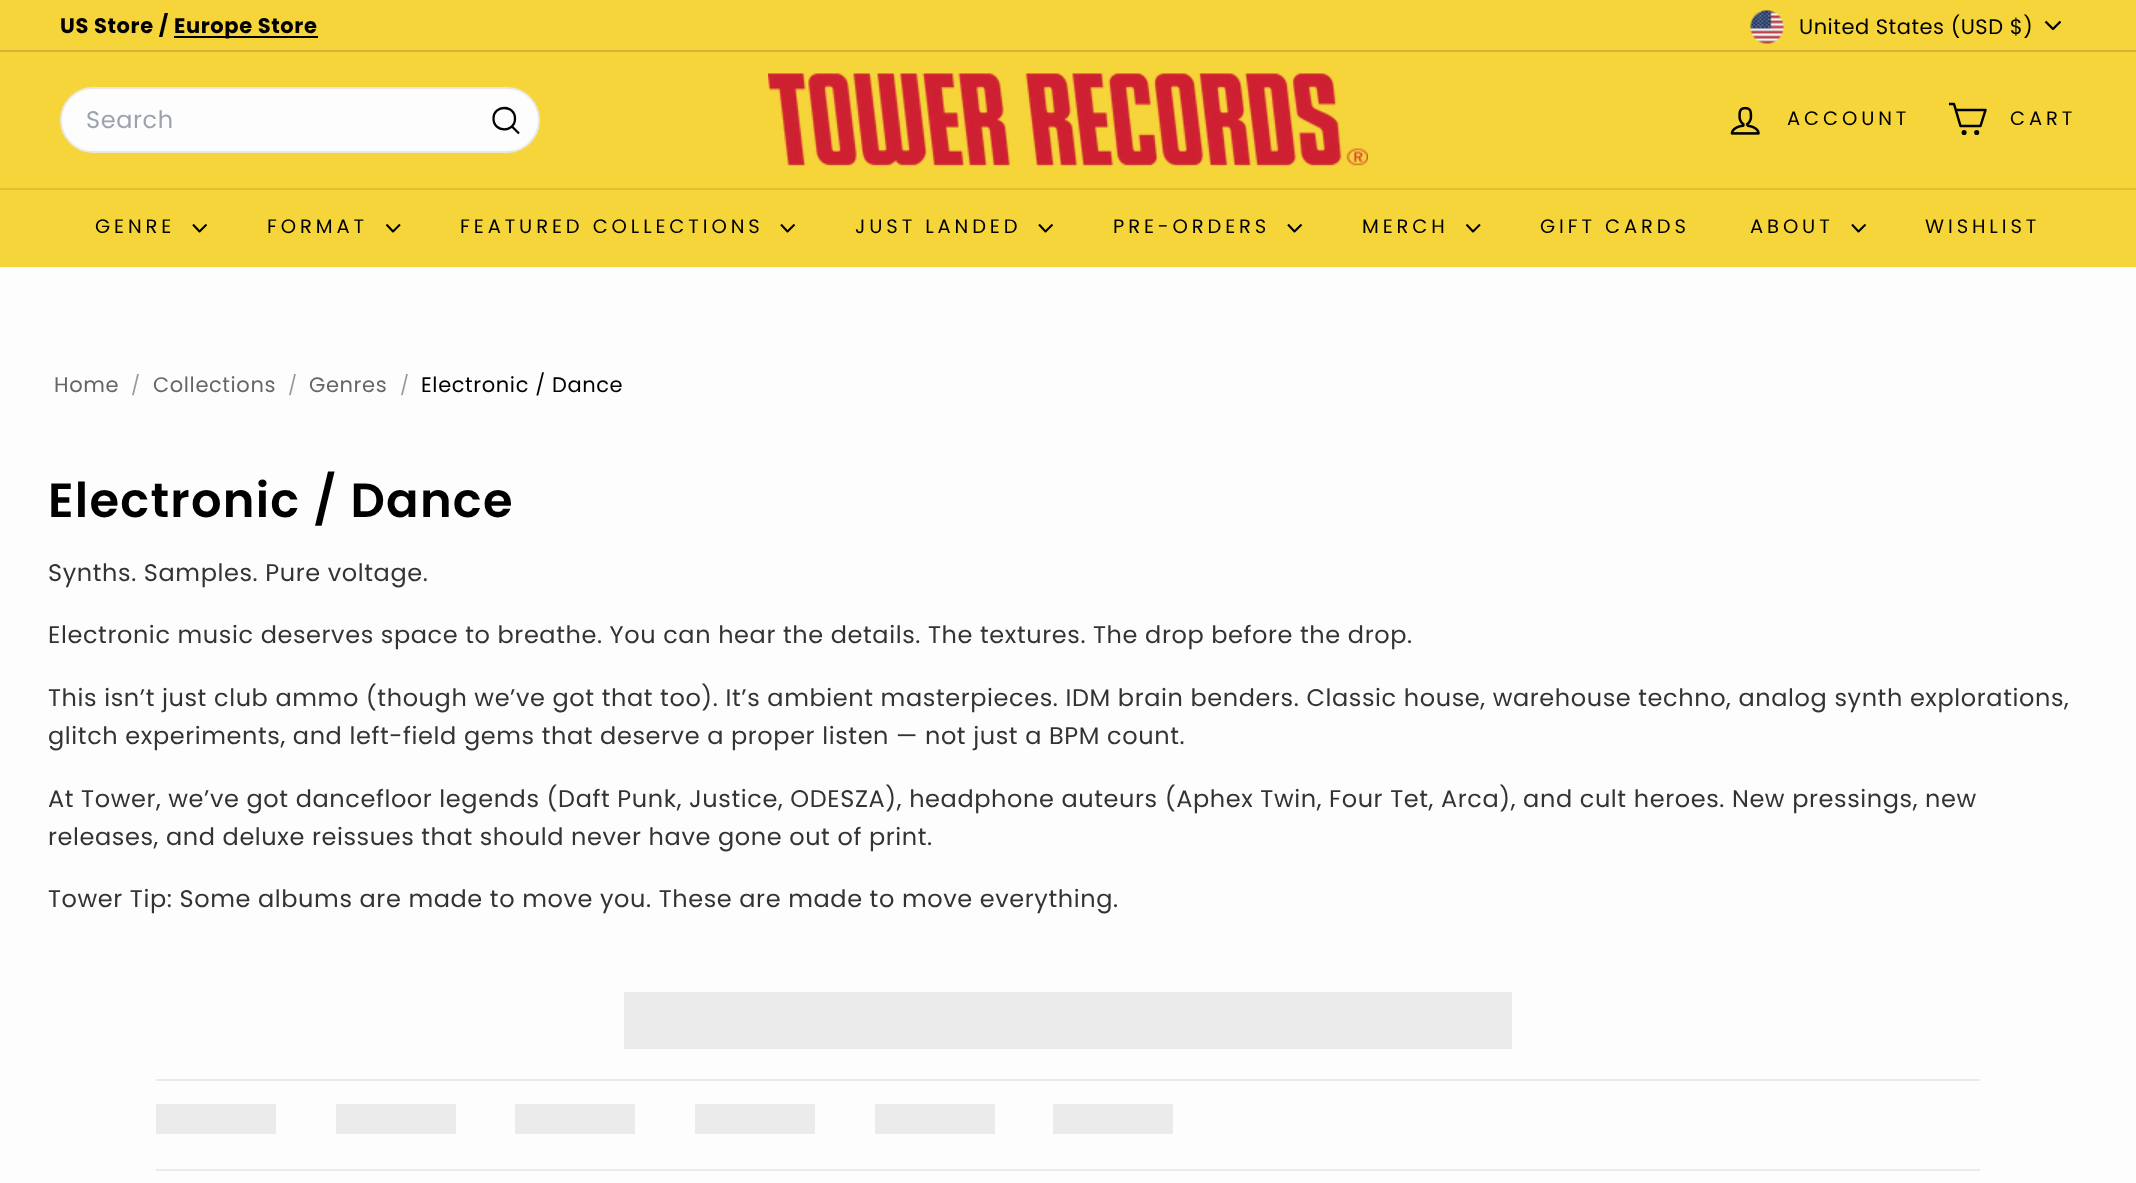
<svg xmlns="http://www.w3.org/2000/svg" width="2136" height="1183">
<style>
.a{font:bold 21px Poppins;letter-spacing:0.6px;fill:#000}
.b{font:21px Poppins;letter-spacing:0.5px;fill:#000}
.c{font:24px Poppins;letter-spacing:0.6px;fill:#9ca3af}
.d{font:19.5px Poppins;letter-spacing:3.9px;fill:#000}
.e{font:21px Poppins;letter-spacing:0.6px;fill:#666}
.f{font:19px Poppins;letter-spacing:0.6px;fill:#999}
.g{font:21px Poppins;letter-spacing:0.6px;fill:#000}
.h{font:600 48px Poppins;letter-spacing:1.25px;fill:#000}
.i{font:24px Poppins;letter-spacing:0.6px;fill:#333}
</style>
<rect width="100%" height="100%" fill="#fdfdfd"/>
<path fill="#f6d53b" d="M0 0h2136v50H0z"/>
<path fill="#000" d="M174 36h144v2H174z"/>
<image href="1.png" x="1750" y="10" width="34" height="34"/>
<path fill="none" stroke="#000" stroke-width="2.4" stroke-linejoin="round" d="M2045.5 21.5l7.5 7.5l7.5-7.5"/>
<path fill="#d1b532" d="M0 50h2136v2H0z"/>
<path fill="#f6d53b" d="M0 52h2136v136H0z"/>
<rect fill="#fdfdfd" stroke="#e8e8e1" stroke-width="2" x="61" y="88" width="478" height="64" rx="32"/>
<path fill="none" stroke="#000" stroke-width="2.3" stroke-linejoin="round" d="M515 118.5c0 14.5-21.5 14.5-21.5 0c0-14 21.5-14 21.5 0m4 15l-7-7"/>
<image href="2.png" x="768" y="73" width="600" height="93"/>
<image href="3.png" x="1730" y="106" width="30" height="29"/>
<path fill="none" stroke="#000" stroke-width="2.5" stroke-linejoin="round" d="M1956 110h29.5l-5 16h-20l-6.5-22h-5"/>
<circle fill="none" stroke="#000" stroke-width="2.5" cx="1964.1" cy="132.5" r="1.3"/>
<circle fill="none" stroke="#000" stroke-width="2.5" cx="1976.7" cy="132.5" r="1.3"/>
<path fill="#f6d53b" d="M0 190h2136v77H0z"/>
<path fill="#ddc035" d="M0 188h2136v2H0z"/>
<path fill="none" stroke="#000" stroke-width="2.1" stroke-linejoin="round" d="M193 224.5l6.5 7l7-7"/>
<path fill="none" stroke="#000" stroke-width="2.1" stroke-linejoin="round" d="M386.5 224.5l6.5 7l7-7"/>
<path fill="none" stroke="#000" stroke-width="2.1" stroke-linejoin="round" d="M781 224.5l6.5 7l7-7"/>
<path fill="none" stroke="#000" stroke-width="2.1" stroke-linejoin="round" d="M1039 224.5l6.5 7l7-7"/>
<path fill="none" stroke="#000" stroke-width="2.1" stroke-linejoin="round" d="M1288 224.5l6.5 7l7-7"/>
<path fill="none" stroke="#000" stroke-width="2.1" stroke-linejoin="round" d="M1466.5 224.5l6.5 7l7-7"/>
<path fill="none" stroke="#000" stroke-width="2.1" stroke-linejoin="round" d="M1852 224.5l6.5 7l7-7"/>
<path fill="#ebebeb" d="M624 992h888v57H624z"/>
<path fill="#ebebeb" d="M156 1079h1824v2H156z"/>
<path fill="#ebebeb" d="M156 1104h120v30H156z"/>
<path fill="#ebebeb" d="M336 1104h120v30H336z"/>
<path fill="#ebebeb" d="M515 1104h120v30H515z"/>
<path fill="#ebebeb" d="M695 1104h120v30H695z"/>
<path fill="#ebebeb" d="M875 1104h120v30H875z"/>
<path fill="#ebebeb" d="M1053 1104h120v30H1053z"/>
<path fill="#ebebeb" d="M156 1169h1824v2H156z"/>
<text class="a" x="60" y="33">US Store /</text>
<text class="a" x="174" y="33">Europe Store</text>
<text class="b" x="1799" y="34">United States (USD $)</text>
<text class="c" x="86" y="128">Search</text>
<text class="d" x="1787" y="125">ACCOUNT</text>
<text class="d" x="2010" y="125">CART</text>
<text class="d" x="95" y="233">GENRE</text>
<text class="d" x="267" y="233">FORMAT</text>
<text class="d" x="460" y="233">FEATURED COLLECTIONS</text>
<text class="d" x="855" y="233">JUST LANDED</text>
<text class="d" x="1113" y="233">PRE-ORDERS</text>
<text class="d" x="1362" y="233">MERCH</text>
<text class="d" x="1540" y="233">GIFT CARDS</text>
<text class="d" x="1750" y="233">ABOUT</text>
<text class="d" x="1925" y="233">WISHLIST</text>
<text class="e" x="54" y="392">Home</text>
<text class="f" x="131" y="392">/</text>
<text class="e" x="153" y="392">Collections</text>
<text class="f" x="288" y="392">/</text>
<text class="e" x="309" y="392">Genres</text>
<text class="f" x="400" y="392">/</text>
<text class="g" x="421" y="392">Electronic / Dance</text>
<text class="h" x="48" y="517">Electronic / Dance</text>
<text class="i" x="48" y="581">Synths. Samples. Pure voltage.</text>
<text class="i" x="48" y="643">Electronic music deserves space to breathe. You can hear the details. The textures. The drop before the drop.</text>
<text class="i" x="48" y="706">This isn’t just club ammo (though we’ve got that too). It’s ambient masterpieces. IDM brain benders. Classic house, warehouse techno, analog synth explorations,</text>
<text class="i" x="48" y="744">glitch experiments, and left-field gems that deserve a proper listen — not just a BPM count.</text>
<text class="i" x="48" y="807">At Tower, we’ve got dancefloor legends (Daft Punk, Justice, ODESZA), headphone auteurs (Aphex Twin, Four Tet, Arca), and cult heroes. New pressings, new</text>
<text class="i" x="48" y="845">releases, and deluxe reissues that should never have gone out of print.</text>
<text class="i" x="48" y="907">Tower Tip: Some albums are made to move you. These are made to move everything.</text>
</svg>
